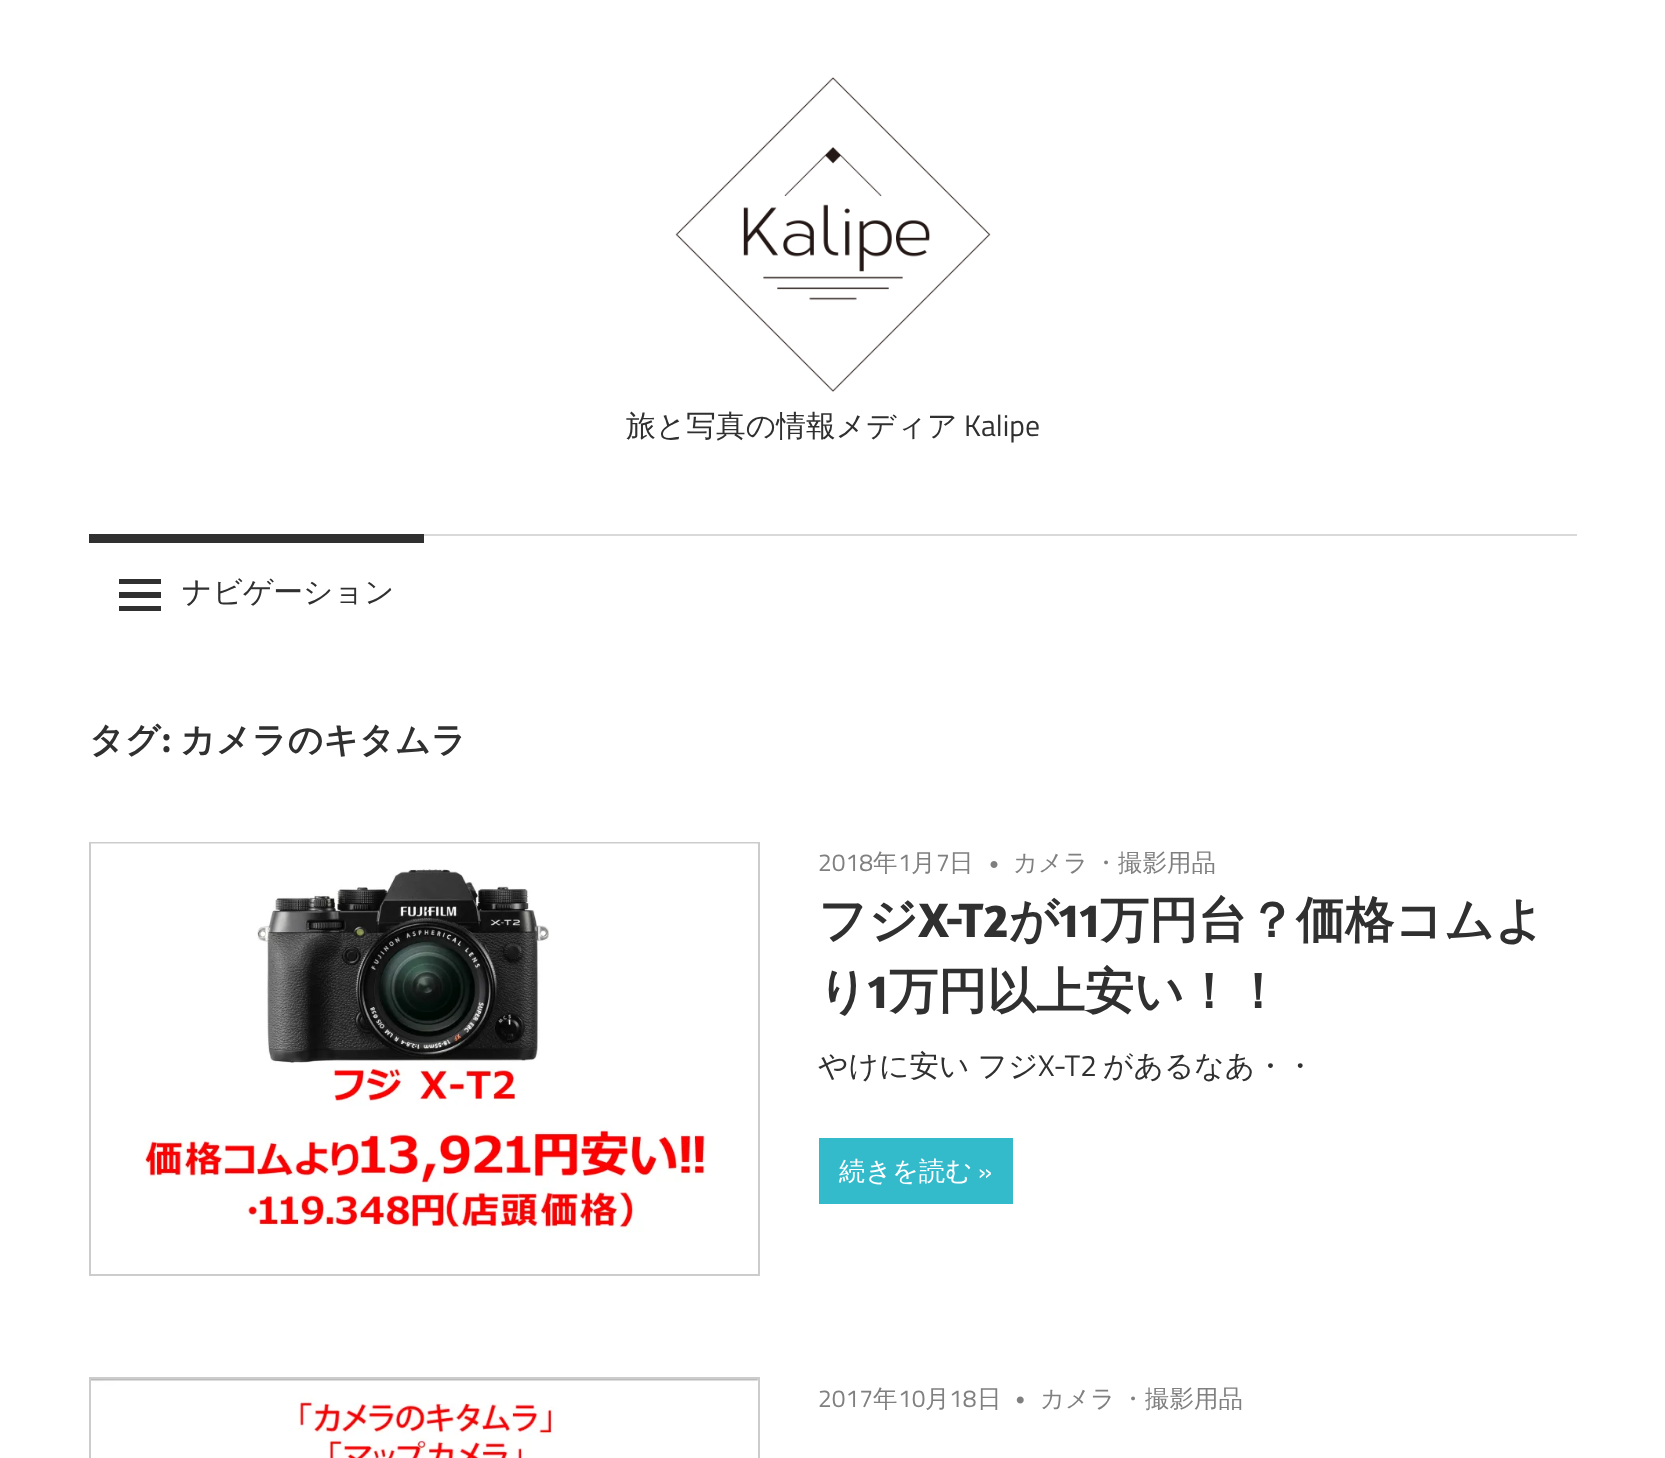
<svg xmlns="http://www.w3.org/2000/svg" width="1665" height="1458">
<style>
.a{font:500 29.75px WenQuanYi Zen Hei;fill:#303030}
.b{font:29.75px Titillium Web;fill:#303030}
.c{font:bold 35px WenQuanYi Zen Hei;fill:#303030}
.d{font:bold 35px Amaranth;fill:#303030}
.e{font:24.5px Titillium Web;fill:#808080}
.f{font:500 24.5px WenQuanYi Zen Hei;fill:#808080}
.g{font:bold 49px WenQuanYi Zen Hei;fill:#303030}
.h{font:bold 49px Amaranth;fill:#303030}
.i{font:500 26.25px WenQuanYi Zen Hei;fill:#fff}
.j{font:26.25px Titillium Web;fill:#fff}
</style>
<rect width="100%" height="100%" fill="#fff"/>
<image href="1.png" x="675" y="77" width="316" height="315"/>
<path fill="#d9d9d9" d="M424 534h1153v2H424z"/>
<path fill="#303030" d="M89 534h335v9H89z"/>
<path fill="#303030" d="M119 611v-5h42v5zm0-32h42v5h-42zm0 19v-6h42v6z"/>
<path fill="none" stroke="#ccc" stroke-width="2" d="M90 843h669v432H90z"/>
<image href="2.png" x="91" y="843" width="667" height="390"/>
<image href="3.png" x="990" y="861" width="8" height="7"/>
<path fill="#3bc" d="M819 1138h194v66H819z"/>
<path fill="none" stroke="#ccc" stroke-width="2" d="M90 1378h669v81H90z"/>
<image href="4.png" x="91" y="1379" width="667" height="79"/>
<image href="5.png" x="1016" y="1396" width="8" height="8"/>
<text class="a" x="626" y="436">旅と写真の情報メディア</text>
<text class="b" x="964" y="436">Kalipe</text>
<text class="a" x="182" y="602">ナビゲーション</text>
<text class="c" x="89" y="752">タグ</text>
<text class="d" x="161" y="752">:</text>
<text class="c" x="180" y="752">カメラのキタムラ</text>
<text class="e" x="818" y="871">2018</text>
<text class="f" x="873" y="871">年</text>
<text class="e" x="898" y="871">1</text>
<text class="f" x="911" y="871">月</text>
<text class="e" x="936" y="871">7</text>
<text class="f" x="949" y="871">日</text>
<text class="f" x="1013" y="871" word-spacing="-2">カメラ ・撮影用品</text>
<text class="g" x="818" y="937">フジ</text>
<text class="h" x="918" y="937">X-T2</text>
<text class="g" x="1009" y="937">が</text>
<text class="h" x="1059" y="937">11</text>
<text class="g" x="1100" y="937">万円台？価格コムよ</text>
<text class="g" x="818" y="1008">り</text>
<text class="h" x="868" y="1008">1</text>
<text class="g" x="889" y="1008">万円以上安い！！</text>
<text class="a" x="818" y="1076" word-spacing="-1">やけに安い フジ</text>
<text class="b" x="1038" y="1076">X-T2</text>
<text class="a" x="1103" y="1076">があるなあ・・</text>
<text class="i" x="839" y="1180">続きを読む</text>
<text class="j" x="978" y="1180">»</text>
<text class="e" x="818" y="1407">2017</text>
<text class="f" x="873" y="1407">年</text>
<text class="e" x="898" y="1407">10</text>
<text class="f" x="925" y="1407">月</text>
<text class="e" x="949" y="1407">18</text>
<text class="f" x="977" y="1407">日</text>
<text class="f" x="1040" y="1407" word-spacing="-2">カメラ ・撮影用品</text>
</svg>
